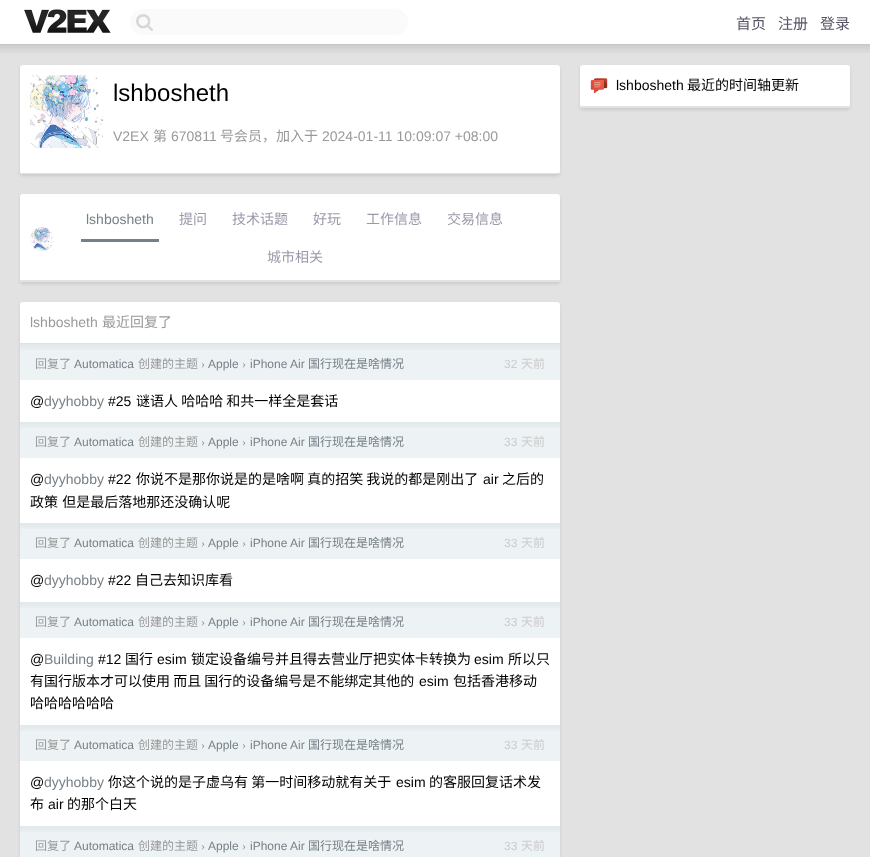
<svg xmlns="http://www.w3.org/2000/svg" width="870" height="857">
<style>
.a{font:15px Noto Sans CJK SC;fill:#556}
.b{font:24px Liberation Sans;fill:#000}
.c{font:14px Liberation Sans;fill:#999}
.d{font:14px Noto Sans CJK SC;fill:#999}
.e{font:14px Liberation Sans;fill:#778087}
.f{font:14px Noto Sans CJK SC;fill:#99a}
.g{font:12px Noto Sans CJK SC;fill:#999}
.h{font:12px Liberation Sans;fill:#778087}
.i{font:12px Liberation Serif;fill:#999}
.j{font:12px Noto Sans CJK SC;fill:#778087}
.k{font:12px Liberation Sans;fill:#ccc}
.l{font:12px Noto Sans CJK SC;fill:#ccc}
.m{font:14px Liberation Sans;fill:#000}
.n{font:14px Noto Sans CJK SC;fill:#000}
</style>
<rect width="100%" height="100%" fill="#fff"/>
<path fill="#c7c7c7" d="M0 44h870v1H0z"/>
<image href="1.png" x="24" y="9" width="87" height="24"/>
<rect fill="#fafafa" x="130" y="9" width="278" height="26" rx="13"/>
<image href="2.png" x="136" y="14" width="17" height="17"/>
<path fill="#e2e2e2" d="M0 45h870v812H0z"/>
<image href="3.png" x="0" y="45" width="870" height="8"/>
<rect fill="#0000001a" filter="blur(1.5px)" x="20" y="67" width="540" height="109" rx="3"/>
<rect fill="#fff" x="20" y="65" width="540" height="109" rx="3"/>
<path fill="#e2e2e2" d="M22 173h537v1H22z"/>
<image href="4.png" x="30" y="75" width="73" height="73"/>
<rect fill="#0000001a" filter="blur(1.5px)" x="20" y="196" width="540" height="88" rx="3"/>
<rect fill="#fff" x="20" y="194" width="540" height="88" rx="3"/>
<path fill="#e2e2e2" d="M22 281h537v1H22z"/>
<path fill="#e2e2e2" d="M20 280h540v1H20z"/>
<image href="5.png" x="30" y="227" width="24" height="24"/>
<path fill="#778087" d="M81 239h78v3H81z"/>
<rect fill="#0000001a" filter="blur(1.5px)" x="20" y="304" width="540" height="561" rx="3"/>
<rect fill="#fff" x="20" y="302" width="540" height="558" rx="3"/>
<path fill="#e2e2e2" d="M20 343h540v1H20z"/>
<path fill="#edf3f5" d="M20 344h540v36H20z"/>
<image href="6.png" x="20" y="344" width="540" height="6"/>
<path fill="#edf3f5" d="M20 422h540v36H20z"/>
<image href="6.png" x="20" y="422" width="540" height="6"/>
<path fill="#edf3f5" d="M20 523h540v36H20z"/>
<image href="6.png" x="20" y="523" width="540" height="6"/>
<path fill="#edf3f5" d="M20 602h540v36H20z"/>
<image href="6.png" x="20" y="602" width="540" height="6"/>
<path fill="#edf3f5" d="M20 725h540v36H20z"/>
<image href="6.png" x="20" y="725" width="540" height="6"/>
<path fill="#edf3f5" d="M20 826h540v31H20z"/>
<image href="6.png" x="20" y="826" width="540" height="6"/>
<rect fill="#0000001a" filter="blur(1.5px)" x="580" y="67" width="270" height="43" rx="3"/>
<rect fill="#fff" x="580" y="65" width="270" height="43" rx="3"/>
<path fill="#e2e2e2" d="M582 107h267v1H582z"/>
<path fill="#e2e2e2" d="M580 106h270v1H580z"/>
<image href="7.png" x="590" y="78" width="18" height="16"/>
<text class="a" x="736" y="29">首页</text>
<text class="a" x="778" y="29">注册</text>
<text class="a" x="820" y="29">登录</text>
<text class="b" x="113" y="101">lshbosheth</text>
<text class="c" x="113" y="141">V2EX</text>
<text class="d" x="153" y="141">第</text>
<text class="c" x="171" y="141">670811</text>
<text class="d" x="220" y="141">号会员，加入于</text>
<text class="c" x="322" y="141">2024-01-11 10:09:07 +08:00</text>
<text class="e" x="86" y="224">lshbosheth</text>
<text class="f" x="179" y="224">提问</text>
<text class="f" x="232" y="224">技术话题</text>
<text class="f" x="313" y="224">好玩</text>
<text class="f" x="366" y="224">工作信息</text>
<text class="f" x="447" y="224">交易信息</text>
<text class="f" x="267" y="262">城市相关</text>
<text class="c" x="30" y="327">lshbosheth</text>
<text class="d" x="102" y="327">最近回复了</text>
<text class="g" x="35" y="368">回复了</text>
<text class="h" x="74" y="368">Automatica</text>
<text class="g" x="138" y="368">创建的主题</text>
<text class="i" x="201" y="368">›</text>
<text class="h" x="208" y="368">Apple</text>
<text class="i" x="242" y="368">›</text>
<text class="h" x="250" y="368">iPhone Air</text>
<text class="j" x="308" y="368">国行现在是啥情况</text>
<text class="k" x="504" y="368">32</text>
<text class="l" x="521" y="368">天前</text>
<text class="m" x="30" y="406">@</text>
<text class="e" x="44" y="406">dyyhobby</text>
<text class="m" x="108" y="406">#25</text>
<text class="n" x="136" y="406">谜语人 哈哈哈 和共一样全是套话</text>
<text class="g" x="35" y="446">回复了</text>
<text class="h" x="74" y="446">Automatica</text>
<text class="g" x="138" y="446">创建的主题</text>
<text class="i" x="201" y="446">›</text>
<text class="h" x="208" y="446">Apple</text>
<text class="i" x="242" y="446">›</text>
<text class="h" x="250" y="446">iPhone Air</text>
<text class="j" x="308" y="446">国行现在是啥情况</text>
<text class="k" x="504" y="446">33</text>
<text class="l" x="521" y="446">天前</text>
<text class="m" x="30" y="484">@</text>
<text class="e" x="44" y="484">dyyhobby</text>
<text class="m" x="108" y="484">#22</text>
<text class="n" x="136" y="484">你说不是那你说是的是啥啊 真的招笑 我说的都是刚出了</text>
<text class="m" x="483" y="484">air</text>
<text class="n" x="502" y="484">之后的</text>
<text class="n" x="30" y="507" word-spacing="1">政策 但是最后落地那还没确认呢</text>
<text class="g" x="35" y="547">回复了</text>
<text class="h" x="74" y="547">Automatica</text>
<text class="g" x="138" y="547">创建的主题</text>
<text class="i" x="201" y="547">›</text>
<text class="h" x="208" y="547">Apple</text>
<text class="i" x="242" y="547">›</text>
<text class="h" x="250" y="547">iPhone Air</text>
<text class="j" x="308" y="547">国行现在是啥情况</text>
<text class="k" x="504" y="547">33</text>
<text class="l" x="521" y="547">天前</text>
<text class="m" x="30" y="585">@</text>
<text class="e" x="44" y="585">dyyhobby</text>
<text class="m" x="108" y="585">#22</text>
<text class="n" x="135" y="585">自己去知识库看</text>
<text class="g" x="35" y="626">回复了</text>
<text class="h" x="74" y="626">Automatica</text>
<text class="g" x="138" y="626">创建的主题</text>
<text class="i" x="201" y="626">›</text>
<text class="h" x="208" y="626">Apple</text>
<text class="i" x="242" y="626">›</text>
<text class="h" x="250" y="626">iPhone Air</text>
<text class="j" x="308" y="626">国行现在是啥情况</text>
<text class="k" x="504" y="626">33</text>
<text class="l" x="521" y="626">天前</text>
<text class="m" x="30" y="664">@</text>
<text class="e" x="44" y="664">Building</text>
<text class="m" x="98" y="664">#12</text>
<text class="n" x="125" y="664">国行</text>
<text class="m" x="157" y="664">esim</text>
<text class="n" x="191" y="664">锁定设备编号并且得去营业厅把实体卡转换为</text>
<text class="m" x="474" y="664">esim</text>
<text class="n" x="508" y="664">所以只</text>
<text class="n" x="30" y="686">有国行版本才可以使用 而且 国行的设备编号是不能绑定其他的</text>
<text class="m" x="419" y="686">esim</text>
<text class="n" x="453" y="686">包括香港移动</text>
<text class="n" x="30" y="708">哈哈哈哈哈哈</text>
<text class="g" x="35" y="749">回复了</text>
<text class="h" x="74" y="749">Automatica</text>
<text class="g" x="138" y="749">创建的主题</text>
<text class="i" x="201" y="749">›</text>
<text class="h" x="208" y="749">Apple</text>
<text class="i" x="242" y="749">›</text>
<text class="h" x="250" y="749">iPhone Air</text>
<text class="j" x="308" y="749">国行现在是啥情况</text>
<text class="k" x="504" y="749">33</text>
<text class="l" x="521" y="749">天前</text>
<text class="m" x="30" y="787">@</text>
<text class="e" x="44" y="787">dyyhobby</text>
<text class="n" x="108" y="787">你这个说的是子虚乌有 第一时间移动就有关于</text>
<text class="m" x="396" y="787">esim</text>
<text class="n" x="429" y="787">的客服回复话术发</text>
<text class="n" x="30" y="809">布</text>
<text class="m" x="48" y="809">air</text>
<text class="n" x="67" y="809">的那个白天</text>
<text class="g" x="35" y="850">回复了</text>
<text class="h" x="74" y="850">Automatica</text>
<text class="g" x="138" y="850">创建的主题</text>
<text class="i" x="201" y="850">›</text>
<text class="h" x="208" y="850">Apple</text>
<text class="i" x="242" y="850">›</text>
<text class="h" x="250" y="850">iPhone Air</text>
<text class="j" x="308" y="850">国行现在是啥情况</text>
<text class="k" x="504" y="850">33</text>
<text class="l" x="521" y="850">天前</text>
<text class="m" x="616" y="90">lshbosheth</text>
<text class="n" x="687" y="90">最近的时间轴更新</text>
</svg>
